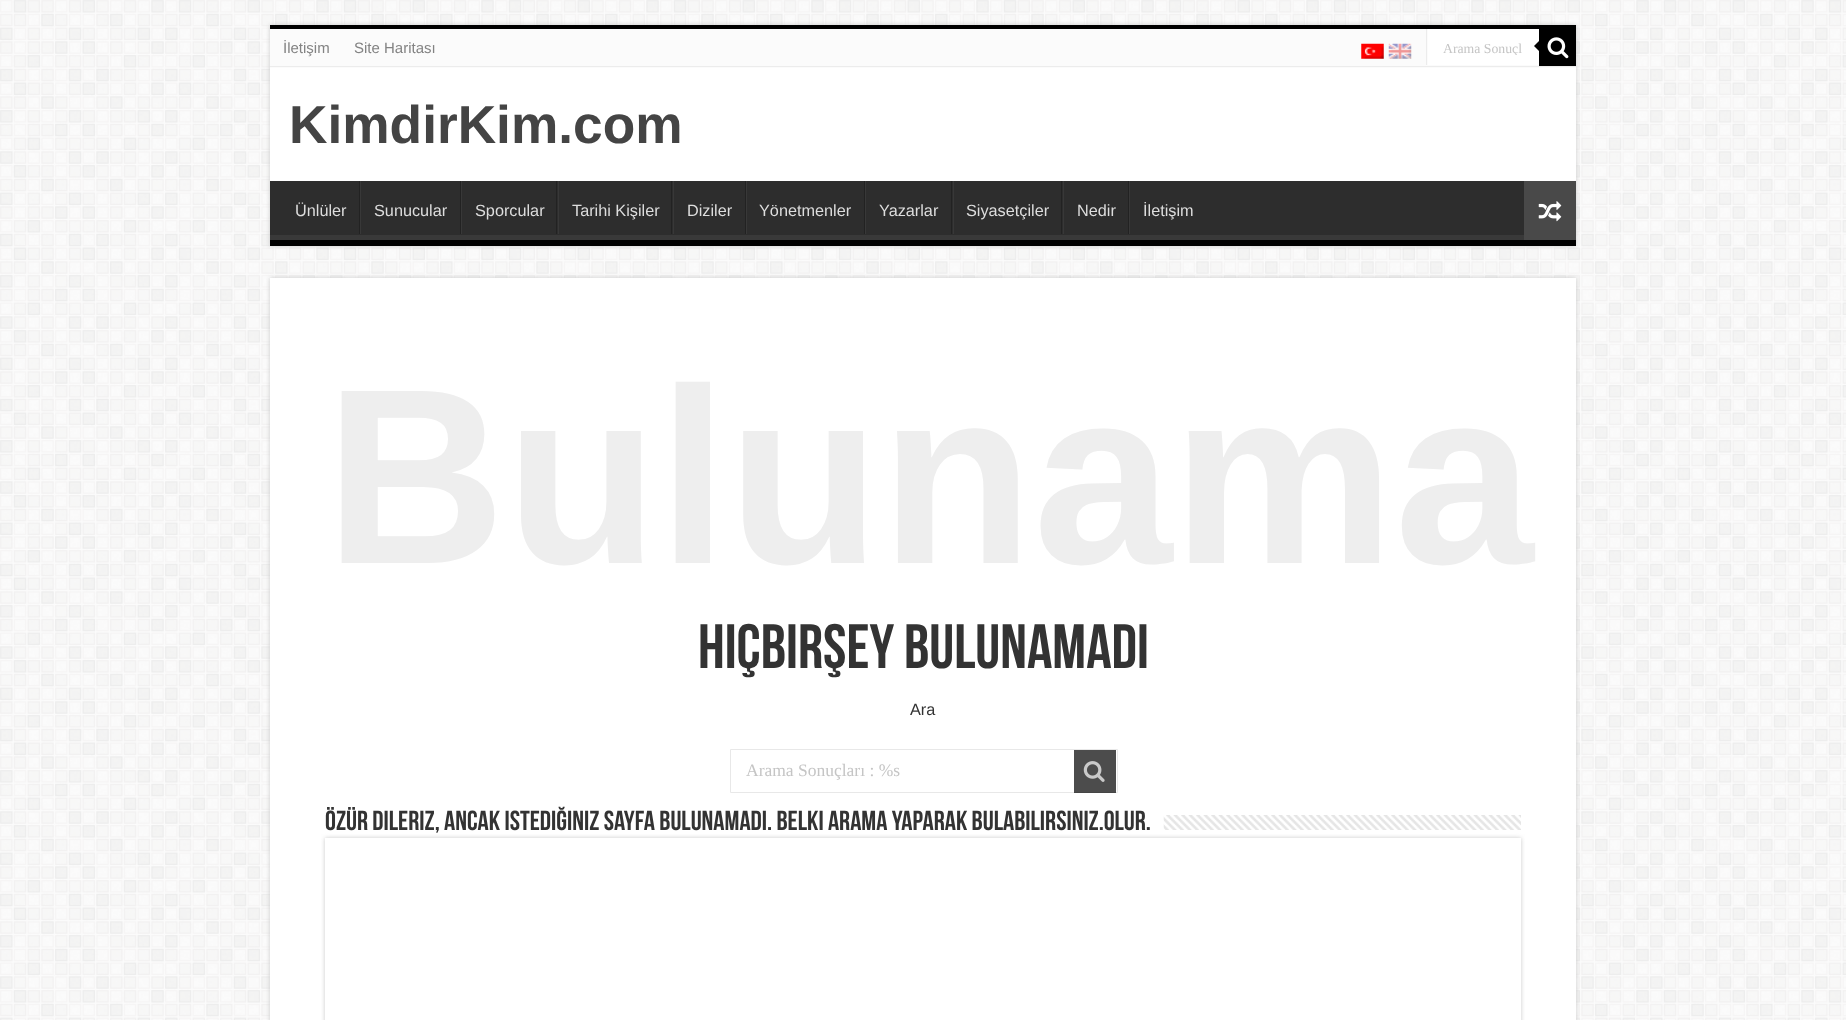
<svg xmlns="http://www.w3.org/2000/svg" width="1846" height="1020">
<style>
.a{font:15px Liberation Sans;fill:#838383}
.b{font:13.75px Liberation Serif;fill:#c5c5c5}
.c{font:bold 53.25px Liberation Sans;fill:#444}
.d{font:16.25px Liberation Sans;fill:#ddd}
.e{font:bold 250px Liberation Sans;fill:#eee}
.f{font:bold 62.5px Bebas Neue;fill:#333}
.g{font:16.25px Liberation Sans;fill:#333}
.h{font:17.5px Liberation Serif;fill:#c5c5c5}
.i{font:bold 27.5px Bebas Neue;fill:#333}
</style>
<defs>
<clipPath id="clip1"><path d="M270 181h1306v59H270z"/></clipPath>
<clipPath id="clip2"><path d="M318 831h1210v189h-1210zm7 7h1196v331h-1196z" clip-rule="evenodd"/></clipPath>
<clipPath id="clip3"><path d="M1443 40h81v15H1443z"/></clipPath>
</defs>
<rect width="100%" height="100%" fill="#fff"/>
<image href="1.png" x="0" y="0" width="1846" height="1020"/>
<path fill="#cacaca" filter="blur(2px)" d="M270 25h1306v221H270z"/>
<path fill="#fff" d="M270 68h1306v113H270z"/>
<path fill="#000" d="M270 25h1306v4H270z"/>
<path fill="#fbfbfb" d="M270 29h1306v39H270z"/>
<path fill="#ececec" d="M270 66h1306v1H270z"/>
<image href="2.png" x="1361" y="43" width="23" height="16"/>
<image href="3.png" x="1388" y="43" width="24" height="16"/>
<path fill="#fff" d="M1428 29h111v36H1428z"/>
<path fill="#ececec" d="M1426 29h1v36H1426z"/>
<path fill="#000" d="M1539 29h37v37H1539z"/>
<image href="4.png" x="1547" y="37" width="22" height="22"/>
<path fill="#000" d="M1539 41v10l-5-5z"/>
<path fill="#2d2d2d" d="M270 181h1254v54H270z"/>
<g clip-path="url(#clip1)">
<path fill="#393939" fill-rule="evenodd" d="M146 58h1554v306h-1554zm123 116h1306c1 0 1 0 1 1v59c0 0 0 1-1 1h-1306c-1 0-1-1-1-1v-59c0-1 0-1 1-1z"/>
</g>
<path fill="#000" d="M270 240h1306v6H270z"/>
<path fill="#222" d="M359 181h1v53H359z"/>
<path fill="#383838" d="M360 181h1v53H360z"/>
<path fill="#222" d="M460 181h1v53H460z"/>
<path fill="#383838" d="M461 181h1v53H461z"/>
<path fill="#222" d="M556 181h1v53H556z"/>
<path fill="#383838" d="M558 181h1v53H558z"/>
<path fill="#222" d="M671 181h1v53H671z"/>
<path fill="#383838" d="M673 181h1v53H673z"/>
<path fill="#222" d="M745 181h1v53H745z"/>
<path fill="#383838" d="M746 181h1v53H746z"/>
<path fill="#222" d="M864 181h1v53H864z"/>
<path fill="#383838" d="M865 181h1v53H865z"/>
<path fill="#222" d="M951 181h1v53H951z"/>
<path fill="#383838" d="M953 181h1v53H953z"/>
<path fill="#222" d="M1061 181h1v53H1061z"/>
<path fill="#383838" d="M1063 181h1v53H1063z"/>
<path fill="#222" d="M1128 181h1v53H1128z"/>
<path fill="#383838" d="M1129 181h1v53H1129z"/>
<path fill="#494949" d="M1524 181h52v59H1524z"/>
<image href="5.png" x="1538" y="201" width="24" height="21"/>
<path fill="#cacaca" filter="blur(2px)" d="M270 278h1306v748H270z"/>
<path fill="#fff" d="M270 278h1306v742H270z"/>
<path fill="none" stroke="#e8e8e8" d="M730.5 749.5h387v43H730.5z"/>
<path fill="#000000b3" d="M1074 750h42v43H1074z"/>
<image href="6.png" x="1083" y="761" width="22" height="21"/>
<image href="7.png" x="1163" y="815" width="358" height="15"/>
<g clip-path="url(#clip2)">
<path fill="#cacaca" filter="blur(2px)" d="M325 838h1196v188H325z"/>
</g>
<text class="a" x="283" y="53">İletişim</text>
<text class="a" x="354" y="53">Site Haritası</text>
<g clip-path="url(#clip3)">
<text class="b" x="1443" y="53">Arama Sonuçl</text>
</g>
<text class="c" x="289" y="143">KimdirKim.com</text>
<text class="d" x="295" y="216">Ünlüler</text>
<text class="d" x="374" y="216">Sunucular</text>
<text class="d" x="475" y="216">Sporcular</text>
<text class="d" x="572" y="216">Tarihi Kişiler</text>
<text class="d" x="687" y="216">Diziler</text>
<text class="d" x="759" y="216">Yönetmenler</text>
<text class="d" x="879" y="216">Yazarlar</text>
<text class="d" x="966" y="216">Siyasetçiler</text>
<text class="d" x="1077" y="216">Nedir</text>
<text class="d" x="1143" y="216">İletişim</text>
<text class="e" x="325" y="563">Bulunama</text>
<text class="f" x="698" y="668">Hiçbirşey Bulunamadı</text>
<text class="g" x="910" y="715">Ara</text>
<text class="h" x="746" y="776">Arama Sonuçları : %s</text>
<text class="i" x="325" y="830">Özür dileriz, ancak istediğiniz sayfa bulunamadı. Belki arama yaparak bulabilirsiniz.olur.</text>
</svg>
